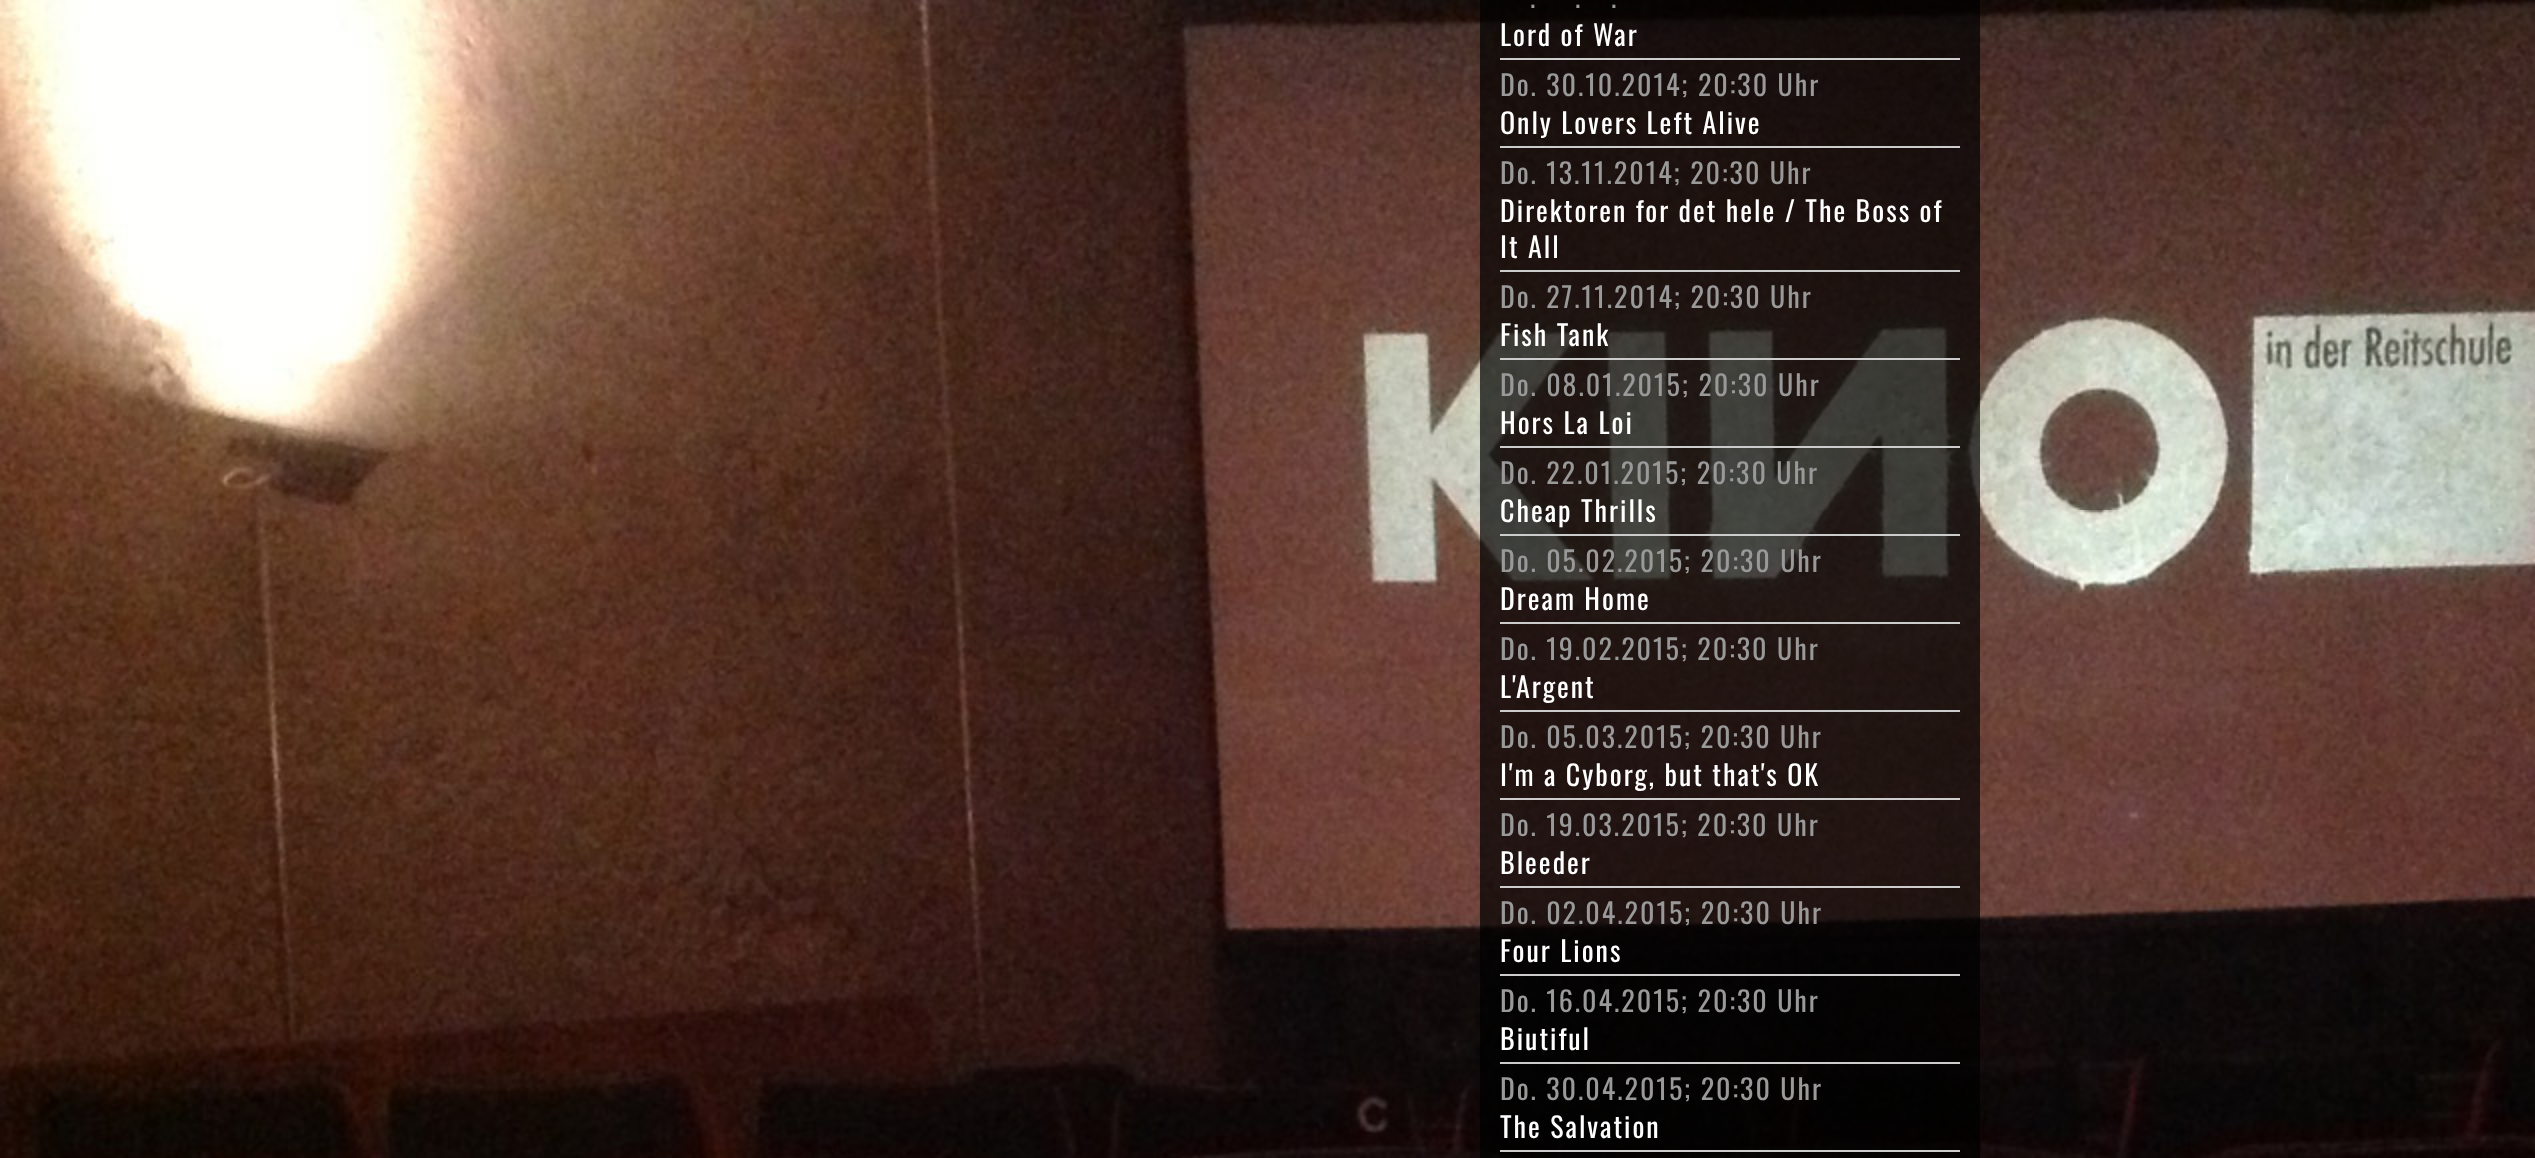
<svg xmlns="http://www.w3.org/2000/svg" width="2535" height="1158">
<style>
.a{font:28px Oswald;letter-spacing:2px;fill:#999}
.b{font:28px Oswald;letter-spacing:2px;fill:#fff}
</style>
<rect width="100%" height="100%" fill="#fff"/>
<image href="1.png" x="0" y="0" width="2535" height="1158"/>
<path fill="#000000b3" d="M1480 0h500v1158H1480z"/>
<path fill="#ccc" d="M1500 58h460v2H1500z"/>
<path fill="#ccc" d="M1500 146h460v2H1500z"/>
<path fill="#ccc" d="M1500 270h460v2H1500z"/>
<path fill="#ccc" d="M1500 358h460v2H1500z"/>
<path fill="#ccc" d="M1500 446h460v2H1500z"/>
<path fill="#ccc" d="M1500 534h460v2H1500z"/>
<path fill="#ccc" d="M1500 622h460v2H1500z"/>
<path fill="#ccc" d="M1500 710h460v2H1500z"/>
<path fill="#ccc" d="M1500 798h460v2H1500z"/>
<path fill="#ccc" d="M1500 886h460v2H1500z"/>
<path fill="#ccc" d="M1500 974h460v2H1500z"/>
<path fill="#ccc" d="M1500 1062h460v2H1500z"/>
<path fill="#ccc" d="M1500 1150h460v2H1500z"/>
<text class="a" x="1530" y="8">.</text>
<text class="a" x="1575" y="8">.</text>
<text class="a" x="1611" y="8">.</text>
<text class="b" x="1500" y="46">Lord of War</text>
<text class="a" x="1500" y="96">Do. 30.10.2014; 20:30 Uhr</text>
<text class="b" x="1500" y="134">Only Lovers Left Alive</text>
<text class="a" x="1500" y="184">Do. 13.11.2014; 20:30 Uhr</text>
<text class="b" x="1500" y="222">Direktoren for det hele / The Boss of</text>
<text class="b" x="1500" y="258">It All</text>
<text class="a" x="1500" y="308">Do. 27.11.2014; 20:30 Uhr</text>
<text class="b" x="1500" y="346">Fish Tank</text>
<text class="a" x="1500" y="396">Do. 08.01.2015; 20:30 Uhr</text>
<text class="b" x="1500" y="434">Hors La Loi</text>
<text class="a" x="1500" y="484">Do. 22.01.2015; 20:30 Uhr</text>
<text class="b" x="1500" y="522">Cheap Thrills</text>
<text class="a" x="1500" y="572">Do. 05.02.2015; 20:30 Uhr</text>
<text class="b" x="1500" y="610">Dream Home</text>
<text class="a" x="1500" y="660">Do. 19.02.2015; 20:30 Uhr</text>
<text class="b" x="1500" y="698">L'Argent</text>
<text class="a" x="1500" y="748">Do. 05.03.2015; 20:30 Uhr</text>
<text class="b" x="1500" y="786">I'm a Cyborg, but that's OK</text>
<text class="a" x="1500" y="836">Do. 19.03.2015; 20:30 Uhr</text>
<text class="b" x="1500" y="874">Bleeder</text>
<text class="a" x="1500" y="924">Do. 02.04.2015; 20:30 Uhr</text>
<text class="b" x="1500" y="962">Four Lions</text>
<text class="a" x="1500" y="1012">Do. 16.04.2015; 20:30 Uhr</text>
<text class="b" x="1500" y="1050">Biutiful</text>
<text class="a" x="1500" y="1100">Do. 30.04.2015; 20:30 Uhr</text>
<text class="b" x="1500" y="1138">The Salvation</text>
</svg>
